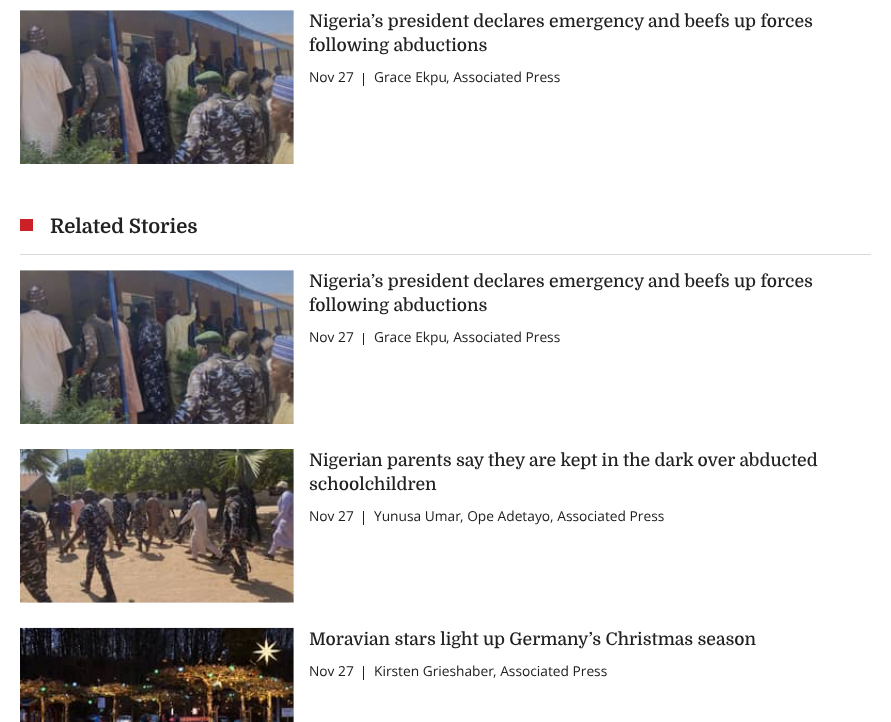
<svg xmlns="http://www.w3.org/2000/svg" width="891" height="722">
<style>
.a{font:500 17.5px Domine;fill:#212121}
.b{font:13.75px Open Sans;fill:#212121}
.c{font:bold 20px Domine;fill:#212121}
</style>
<rect width="100%" height="100%" fill="#fff"/>
<path fill="#f2f3f3" d="M20 10h274v154H20z"/>
<image href="1.png" x="20" y="10" width="274" height="154"/>
<path fill="#212121" d="M363 73h1v13H363z"/>
<path fill="#d9d9d9" d="M20 254h851v1H20z"/>
<path fill="#cc2027" d="M20 219h13v12H20z"/>
<path fill="#f2f3f3" d="M20 270h274v154H20z"/>
<image href="1.png" x="20" y="270" width="274" height="154"/>
<path fill="#212121" d="M363 333h1v12H363z"/>
<path fill="#f2f3f3" d="M20 449h274v154H20z"/>
<image href="2.png" x="20" y="449" width="274" height="154"/>
<path fill="#212121" d="M363 511h1v14H363z"/>
<path fill="#f2f3f3" d="M293 628h1v94H293z"/>
<image href="3.png" x="20" y="627" width="274" height="95"/>
<path fill="#212121" d="M363 666h1v14H363z"/>
<text class="a" x="309" y="27">Nigeria’s president declares emergency and beefs up forces</text>
<text class="a" x="309" y="51">following abductions</text>
<text class="b" x="309" y="82">Nov 27</text>
<text class="b" x="374" y="82">Grace Ekpu</text>
<text class="b" x="446" y="82">, Associated Press</text>
<text class="c" x="50" y="233">Related Stories</text>
<text class="a" x="309" y="287">Nigeria’s president declares emergency and beefs up forces</text>
<text class="a" x="309" y="311">following abductions</text>
<text class="b" x="309" y="342">Nov 27</text>
<text class="b" x="374" y="342">Grace Ekpu</text>
<text class="b" x="446" y="342">, Associated Press</text>
<text class="a" x="309" y="466">Nigerian parents say they are kept in the dark over abducted</text>
<text class="a" x="309" y="490">schoolchildren</text>
<text class="b" x="309" y="521">Nov 27</text>
<text class="b" x="460" y="521">, Ope Adetayo, Associated Press</text>
<text class="b" x="374" y="521">Yunusa Umar</text>
<text class="a" x="309" y="645">Moravian stars light up Germany’s Christmas season</text>
<text class="b" x="309" y="676">Nov 27</text>
<text class="b" x="374" y="676">Kirsten Grieshaber</text>
<text class="b" x="493" y="676">, Associated Press</text>
</svg>
